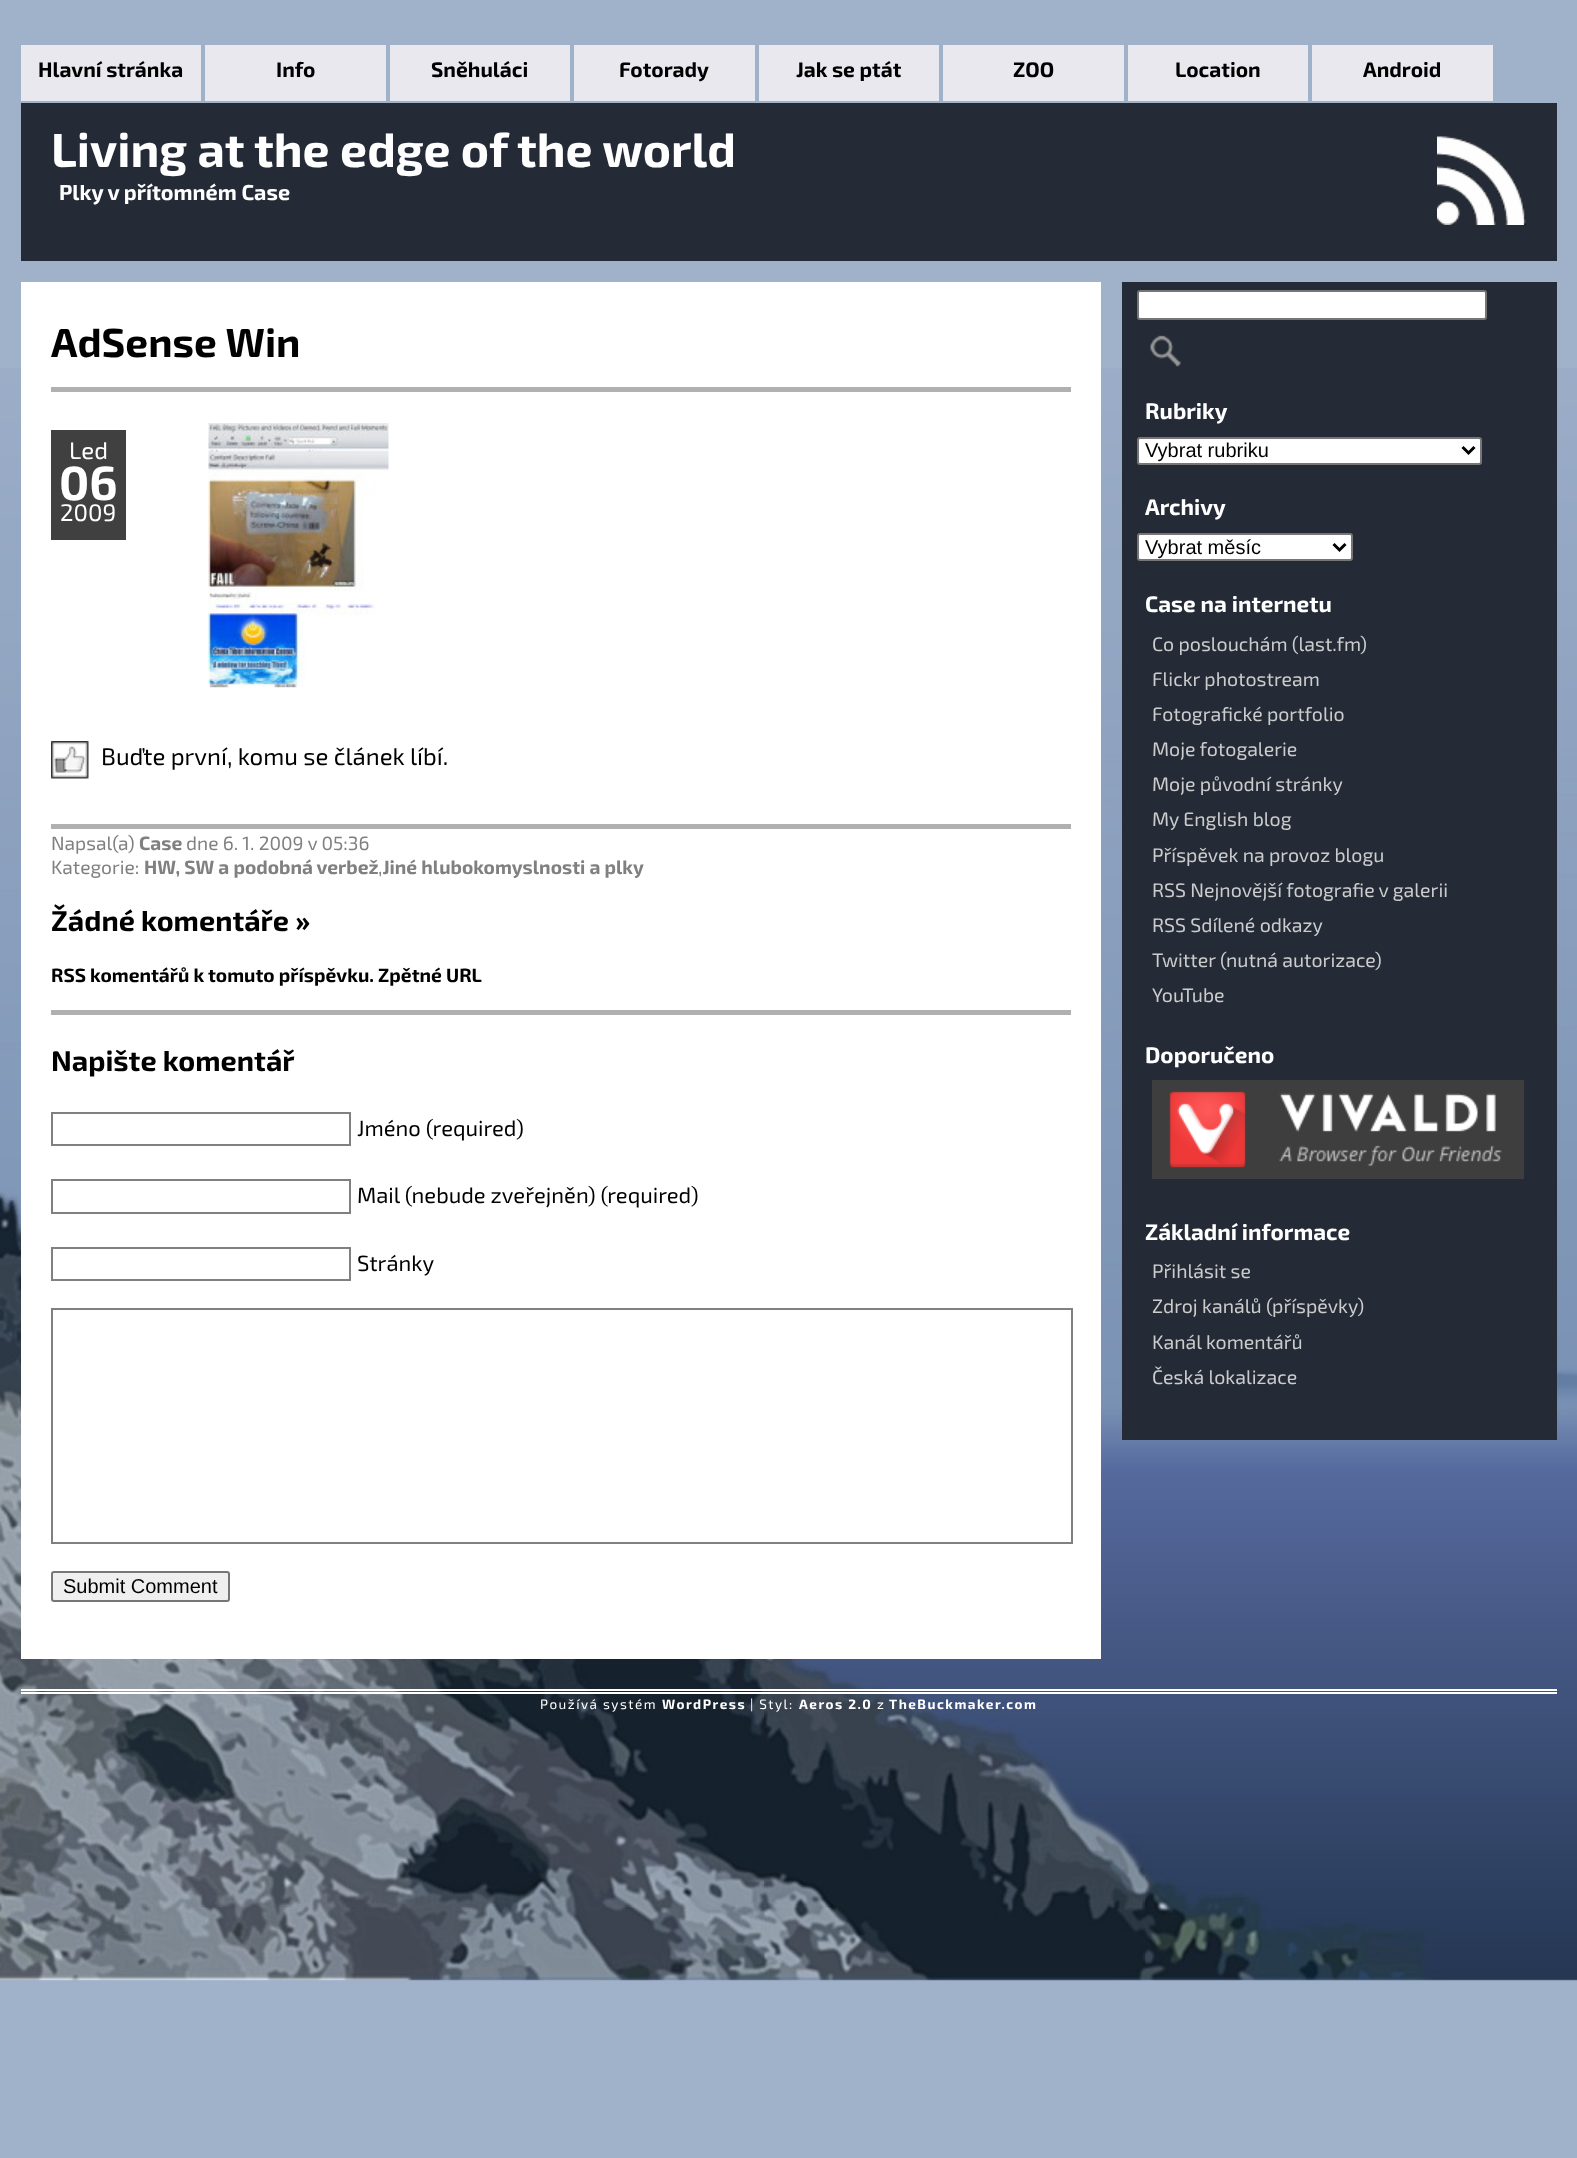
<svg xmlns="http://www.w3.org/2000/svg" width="1577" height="2158">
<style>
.a{font:bold 21px 'Exo 2';fill:#000}
.b{font:bold 48px 'Exo 2';fill:#fff}
.c{font:bold 21.6px 'Exo 2';fill:#fff}
.d{font:bold 40.5px 'Exo 2';fill:#000}
.e{font:24px 'Exo 2';fill:#fff}
.f{font:24px 'Exo 2';fill:#000}
.g{font:19.2px 'Exo 2';fill:#808080}
.h{font:bold 19.2px 'Exo 2';fill:#808080}
.i{font:bold 28.75px 'Exo 2';fill:#000}
.j{font:bold 19.2px 'Exo 2';fill:#000}
.k{font:22px 'Exo 2';fill:#000}
.l{font:20px Liberation Sans;fill:#000}
.m{font:bold 22.5px 'Exo 2';fill:#fff}
.n{font:19.5px 'Exo 2';fill:#ccc}
.o{font:13.5px 'Exo 2';letter-spacing:1.5px;fill:#fff}
.p{font:bold 13.5px 'Exo 2';letter-spacing:1.5px;fill:#fff}
</style>
<rect width="100%" height="100%" fill="#a0b1ca"/>
<image href="1.png" x="0" y="368" width="1577" height="1613"/>
<path fill="#e8e8ee" d="M21 45h180v56H21z"/>
<path fill="#e8e8ee" d="M205 45h181v56H205z"/>
<path fill="#e8e8ee" d="M390 45h180v56H390z"/>
<path fill="#e8e8ee" d="M574 45h181v56H574z"/>
<path fill="#e8e8ee" d="M759 45h180v56H759z"/>
<path fill="#e8e8ee" d="M943 45h181v56H943z"/>
<path fill="#e8e8ee" d="M1128 45h180v56H1128z"/>
<path fill="#e8e8ee" d="M1312 45h181v56H1312z"/>
<path fill="#242b36" d="M21 103h1536v158H21z"/>
<image href="2.png" x="1437" y="136" width="89" height="89"/>
<path fill="#fff" d="M21 282h1080v1377H21z"/>
<path fill="#b0b0b0" d="M51 387h1020v5H51z"/>
<path fill="#404040" d="M51 430h75v110H51z"/>
<image href="3.png" x="208" y="423" width="181" height="265"/>
<image href="4.png" x="51" y="741" width="38" height="38"/>
<path fill="#b0b0b0" d="M51 824h1020v5H51z"/>
<path fill="#b0b0b0" d="M51 1010h1020v5H51z"/>
<path fill="none" stroke="#808080" stroke-width="2" d="M52 1113h298v32H52z"/>
<path fill="none" stroke="#808080" stroke-width="2" d="M52 1180h298v33H52z"/>
<path fill="none" stroke="#808080" stroke-width="2" d="M52 1248h298v32H52z"/>
<path fill="none" stroke="#808080" stroke-width="2" d="M52 1309h1020v234H52z"/>
<rect fill="#efefef" stroke="#767676" stroke-width="2" x="52" y="1572" width="177" height="29" rx="2"/>
<path fill="#242b36" d="M1122 282h435v1158H1122z"/>
<rect fill="#fff" stroke="#767676" stroke-width="2" x="1138" y="291" width="348" height="28" rx="2"/>
<image href="5.png" x="1150" y="335" width="31" height="32"/>
<rect fill="#fff" stroke="#767676" stroke-width="2" x="1138" y="438" width="343" height="26" rx="2"/>
<path fill="none" stroke="#000" stroke-width="3" d="M1462.5 447l6 6l6-6"/>
<rect fill="#fff" stroke="#767676" stroke-width="2" x="1138" y="534" width="214" height="26" rx="2"/>
<path fill="none" stroke="#000" stroke-width="3" d="M1333.5 544l6 6l6-6"/>
<image href="6.png" x="1152" y="1080" width="372" height="99"/>
<path fill="#fff" d="M21 1689h1536v2H21z"/>
<path fill="#fff" d="M21 1692h1536v2H21z"/>
<text class="a" x="38" y="77">Hlavní stránka</text>
<text class="a" x="276" y="77">Info</text>
<text class="a" x="431" y="77">Sněhuláci</text>
<text class="a" x="619" y="77">Fotorady</text>
<text class="a" x="796" y="77">Jak se ptát</text>
<text class="a" x="1013" y="77">ZOO</text>
<text class="a" x="1175" y="77">Location</text>
<text class="a" x="1363" y="77">Android</text>
<text class="b" x="51" y="167">Living at the edge of the world</text>
<text class="c" x="59" y="200">Plky v přítomném Case</text>
<text class="d" x="51" y="357">AdSense Win</text>
<text class="e" x="69" y="459">Led</text>
<text class="b" x="59" y="500">06</text>
<text class="e" x="60" y="521">2009</text>
<text class="f" x="101" y="765">Buďte první, komu se článek líbí.</text>
<text class="g" x="51" y="850">Napsal(a)</text>
<text class="h" x="139" y="850">Case</text>
<text class="g" x="186" y="850">dne 6. 1. 2009 v 05:36</text>
<text class="g" x="51" y="874">Kategorie:</text>
<text class="h" x="144" y="874">HW, SW a podobná verbež Jiné hlubokomyslnosti a plky</text>
<text class="g" x="378" y="874">,</text>
<text class="i" x="51" y="931">Žádné komentáře »</text>
<text class="j" x="51" y="982">RSS komentářů k tomuto příspěvku. Zpětné URL</text>
<text class="i" x="51" y="1071">Napište komentář</text>
<text class="k" x="357" y="1136">Jméno (required)</text>
<text class="k" x="357" y="1203">Mail (nebude zveřejněn) (required)</text>
<text class="k" x="357" y="1271">Stránky</text>
<text class="l" x="63" y="1593">Submit Comment</text>
<text class="m" x="1145" y="419">Rubriky</text>
<text class="l" x="1145" y="457">Vybrat rubriku</text>
<text class="m" x="1145" y="515">Archivy</text>
<text class="l" x="1145" y="554">Vybrat měsíc</text>
<text class="m" x="1145" y="612">Case na internetu</text>
<text class="n" x="1152" y="651">Co poslouchám (last.fm)</text>
<text class="n" x="1152" y="686">Flickr photostream</text>
<text class="n" x="1152" y="721">Fotografické portfolio</text>
<text class="n" x="1152" y="756">Moje fotogalerie</text>
<text class="n" x="1152" y="791">Moje původní stránky</text>
<text class="n" x="1152" y="826">My English blog</text>
<text class="n" x="1152" y="862">Příspěvek na provoz blogu</text>
<text class="n" x="1152" y="897">RSS Nejnovější fotografie v galerii</text>
<text class="n" x="1152" y="932">RSS Sdílené odkazy</text>
<text class="n" x="1152" y="967">Twitter (nutná autorizace)</text>
<text class="n" x="1152" y="1002">YouTube</text>
<text class="m" x="1145" y="1063">Doporučeno</text>
<text class="m" x="1145" y="1240">Základní informace</text>
<text class="n" x="1152" y="1278">Přihlásit se</text>
<text class="n" x="1152" y="1313">Zdroj kanálů (příspěvky)</text>
<text class="n" x="1152" y="1349">Kanál komentářů</text>
<text class="n" x="1152" y="1384">Česká lokalizace</text>
<text class="o" x="540" y="1709">Používá systém</text>
<text class="p" x="662" y="1709">WordPress</text>
<text class="o" x="750" y="1709">| Styl:</text>
<text class="p" x="799" y="1709">Aeros 2.0</text>
<text class="o" x="877" y="1709">z</text>
<text class="p" x="889" y="1709">TheBuckmaker.com</text>
</svg>
